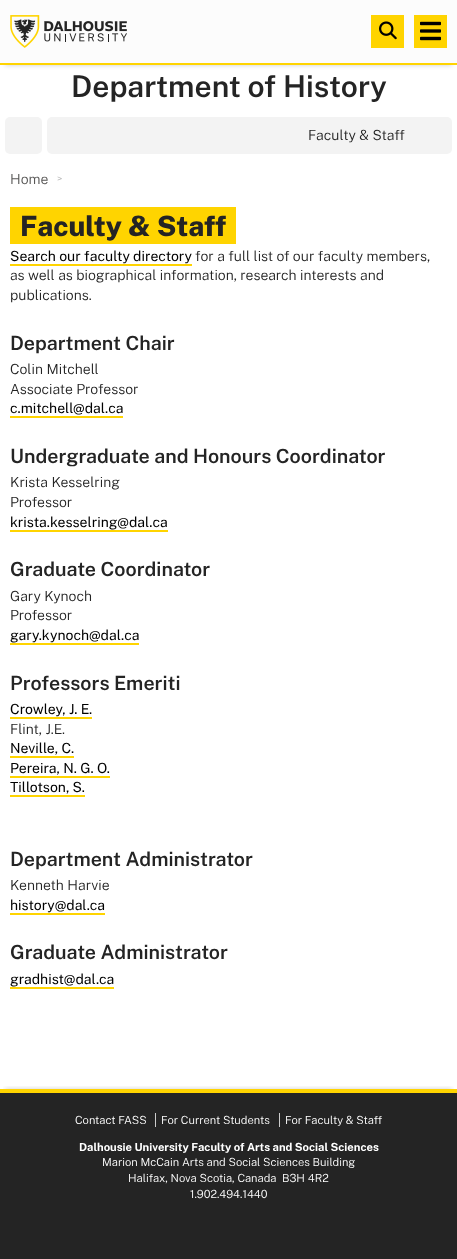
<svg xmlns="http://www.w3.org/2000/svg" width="457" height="1259">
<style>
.a{font:600 30px Public Sans;fill:#242424}
.b{font:300 14px Public Sans;fill:#242424}
.c{font:300 14px Public Sans;fill:#575655}
.d{font:300 10px Public Sans;fill:#b9b9b9}
.e{font:800 28px Public Sans;fill:#242424}
.f{font:14px Public Sans;fill:#000}
.g{font:600 19.6px Public Sans;fill:#242424}
.h{font:300 11.2px Public Sans;fill:#fff}
.i{font:bold 11.2px Public Sans;fill:#fff}
</style>
<defs>
<clipPath id="clip1"><path d="M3 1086h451v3H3z"/></clipPath>
</defs>
<rect width="100%" height="100%" fill="#fff"/>
<path fill="#00000033" filter="blur(2.5px)" d="M5 10h447v55H5z"/>
<path fill="#fcfcfc" d="M0 0h457v63H0z"/>
<path fill="#ffd400" d="M0 63h457v2H0z"/>
<image href="1.png" x="10" y="15" width="117" height="33"/>
<path fill="#ffd400" d="M371 15h33v33H371z"/>
<image href="2.png" x="379" y="21" width="18" height="19"/>
<path fill="#ffd400" d="M414 15h33v33H414z"/>
<image href="3.png" x="420" y="21" width="21" height="20"/>
<rect fill="#f3f3f3" x="5" y="117" width="37" height="37" rx="5"/>
<rect fill="#f3f3f3" x="47" y="117" width="405" height="37" rx="5"/>
<path fill="#ffd400" d="M10 207h226v37H10z"/>
<path fill="#ffd400" d="M10 264h182v2H10z"/>
<path fill="#ffd400" d="M10 416h113v2H10z"/>
<path fill="#ffd400" d="M10 530h158v2H10z"/>
<path fill="#ffd400" d="M10 643h129v2H10z"/>
<path fill="#ffd400" d="M10 717h82v2H10z"/>
<path fill="#ffd400" d="M10 756h64v2H10z"/>
<path fill="#ffd400" d="M10 776h100v2H10z"/>
<path fill="#ffd400" d="M10 795h75v2H10z"/>
<path fill="#ffd400" d="M10 913h95v2H10z"/>
<path fill="#ffd400" d="M10 987h104v2H10z"/>
<path fill="#242424" d="M0 1093h457v166H0z"/>
<g clip-path="url(#clip1)">
<path fill="#00000033" filter="blur(2.5px)" d="M5 1089h447v103H5z"/>
</g>
<path fill="#ffd400" d="M0 1089h457v4H0z"/>
<path fill="#ccc" d="M155 1113h1v14H155z"/>
<path fill="#ccc" d="M279 1113h1v14H279z"/>
<text class="a" x="71" y="97">Department of History</text>
<text class="b" x="308" y="140">Faculty &amp; Staff</text>
<text class="c" x="10" y="184">Home</text>
<text class="d" x="57" y="182">&gt;</text>
<text class="e" x="20" y="236">Faculty &amp; Staff</text>
<text class="f" x="10" y="261">Search our faculty directory</text>
<text class="b" x="195" y="261">for a full list of our faculty members,</text>
<text class="b" x="10" y="280">as well as biographical information, research interests and</text>
<text class="b" x="10" y="300">publications.</text>
<text class="g" x="10" y="350">Department Chair</text>
<text class="b" x="10" y="374">Colin Mitchell</text>
<text class="b" x="10" y="394">Associate Professor</text>
<text class="f" x="10" y="413">c.mitchell@dal.ca</text>
<text class="g" x="10" y="463">Undergraduate and Honours Coordinator</text>
<text class="b" x="10" y="487">Krista Kesselring</text>
<text class="b" x="10" y="507">Professor</text>
<text class="f" x="10" y="527">krista.kesselring@dal.ca</text>
<text class="g" x="10" y="576">Graduate Coordinator</text>
<text class="b" x="10" y="601">Gary Kynoch</text>
<text class="b" x="10" y="620">Professor</text>
<text class="f" x="10" y="640">gary.kynoch@dal.ca</text>
<text class="g" x="10" y="690">Professors Emeriti</text>
<text class="f" x="10" y="714">Crowley, J. E.</text>
<text class="b" x="10" y="734">Flint, J.E.</text>
<text class="f" x="10" y="753">Neville, C.</text>
<text class="f" x="10" y="773">Pereira, N. G. O.</text>
<text class="f" x="10" y="792">Tillotson, S.</text>
<text class="g" x="10" y="866">Department Administrator</text>
<text class="b" x="10" y="890">Kenneth Harvie</text>
<text class="f" x="10" y="910">history@dal.ca</text>
<text class="g" x="10" y="959">Graduate Administrator</text>
<text class="f" x="10" y="984">gradhist@dal.ca</text>
<text class="h" x="75" y="1124">Contact FASS</text>
<text class="h" x="161" y="1124">For Current Students</text>
<text class="h" x="285" y="1124">For Faculty &amp; Staff</text>
<text class="i" x="79" y="1151">Dalhousie University Faculty of Arts and Social Sciences</text>
<text class="h" x="102" y="1166">Marion McCain Arts and Social Sciences Building</text>
<text class="h" xml:space="preserve" x="128" y="1182">Halifax, Nova Scotia, Canada  B3H 4R2</text>
<text class="h" x="190" y="1198">1.902.494.1440</text>
</svg>
